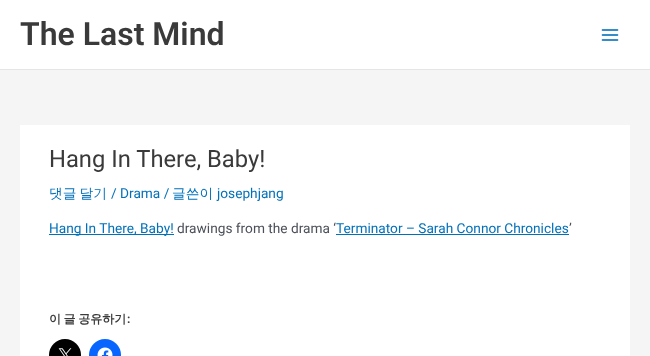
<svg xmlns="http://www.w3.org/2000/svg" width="650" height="356">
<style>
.a{font:600 32px Roboto;fill:#3a3a3a}
.b{font:23.75px Roboto;fill:#3a3a3a}
.c{font:500 13.7px WenQuanYi Zen Hei;fill:#0170b9}
.d{font:13.7px Roboto;fill:#0170b9}
.e{font:13.7px Roboto;fill:#4b4f58}
.f{font:bold 12px WenQuanYi Zen Hei;fill:#3a3a3a}
.g{font:bold 12px Roboto;fill:#3a3a3a}
</style>
<rect width="100%" height="100%" fill="#f5f5f5"/>
<path fill="#fff" d="M0 0h650v69H0z"/>
<path fill="#e5e5e5" d="M0 69h650v1H0z"/>
<image href="1.png" x="601" y="29" width="18" height="12"/>
<path fill="#fff" d="M20 125h610v231H20z"/>
<path fill="#0170b9" d="M49 234h125v1H49z"/>
<path fill="#0170b9" d="M336 234h233v1H336z"/>
<circle fill="#000" cx="65" cy="355" r="16"/>
<image href="2.png" x="58" y="348" width="14" height="8"/>
<circle fill="#0866ff" cx="105" cy="355" r="16"/>
<image href="3.png" x="97" y="347" width="16" height="9"/>
<text class="a" x="20" y="45">The Last Mind</text>
<text class="b" x="49" y="167">Hang In There, Baby!</text>
<text class="c" x="49" y="198" word-spacing="-1">댓글 달기</text>
<text class="d" x="111" y="198">/ Drama /</text>
<text class="c" x="172" y="198">글쓴이</text>
<text class="d" x="217" y="198">josephjang</text>
<text class="d" x="49" y="233">Hang In There, Baby!</text>
<text class="e" x="177" y="233">drawings from the drama ‘</text>
<text class="d" x="336" y="233">Terminator – Sarah Connor Chronicles</text>
<text class="e" x="569" y="233">’</text>
<text class="f" x="49" y="323" word-spacing="-1">이 글 공유하기</text>
<text class="g" x="127" y="323">:</text>
</svg>
